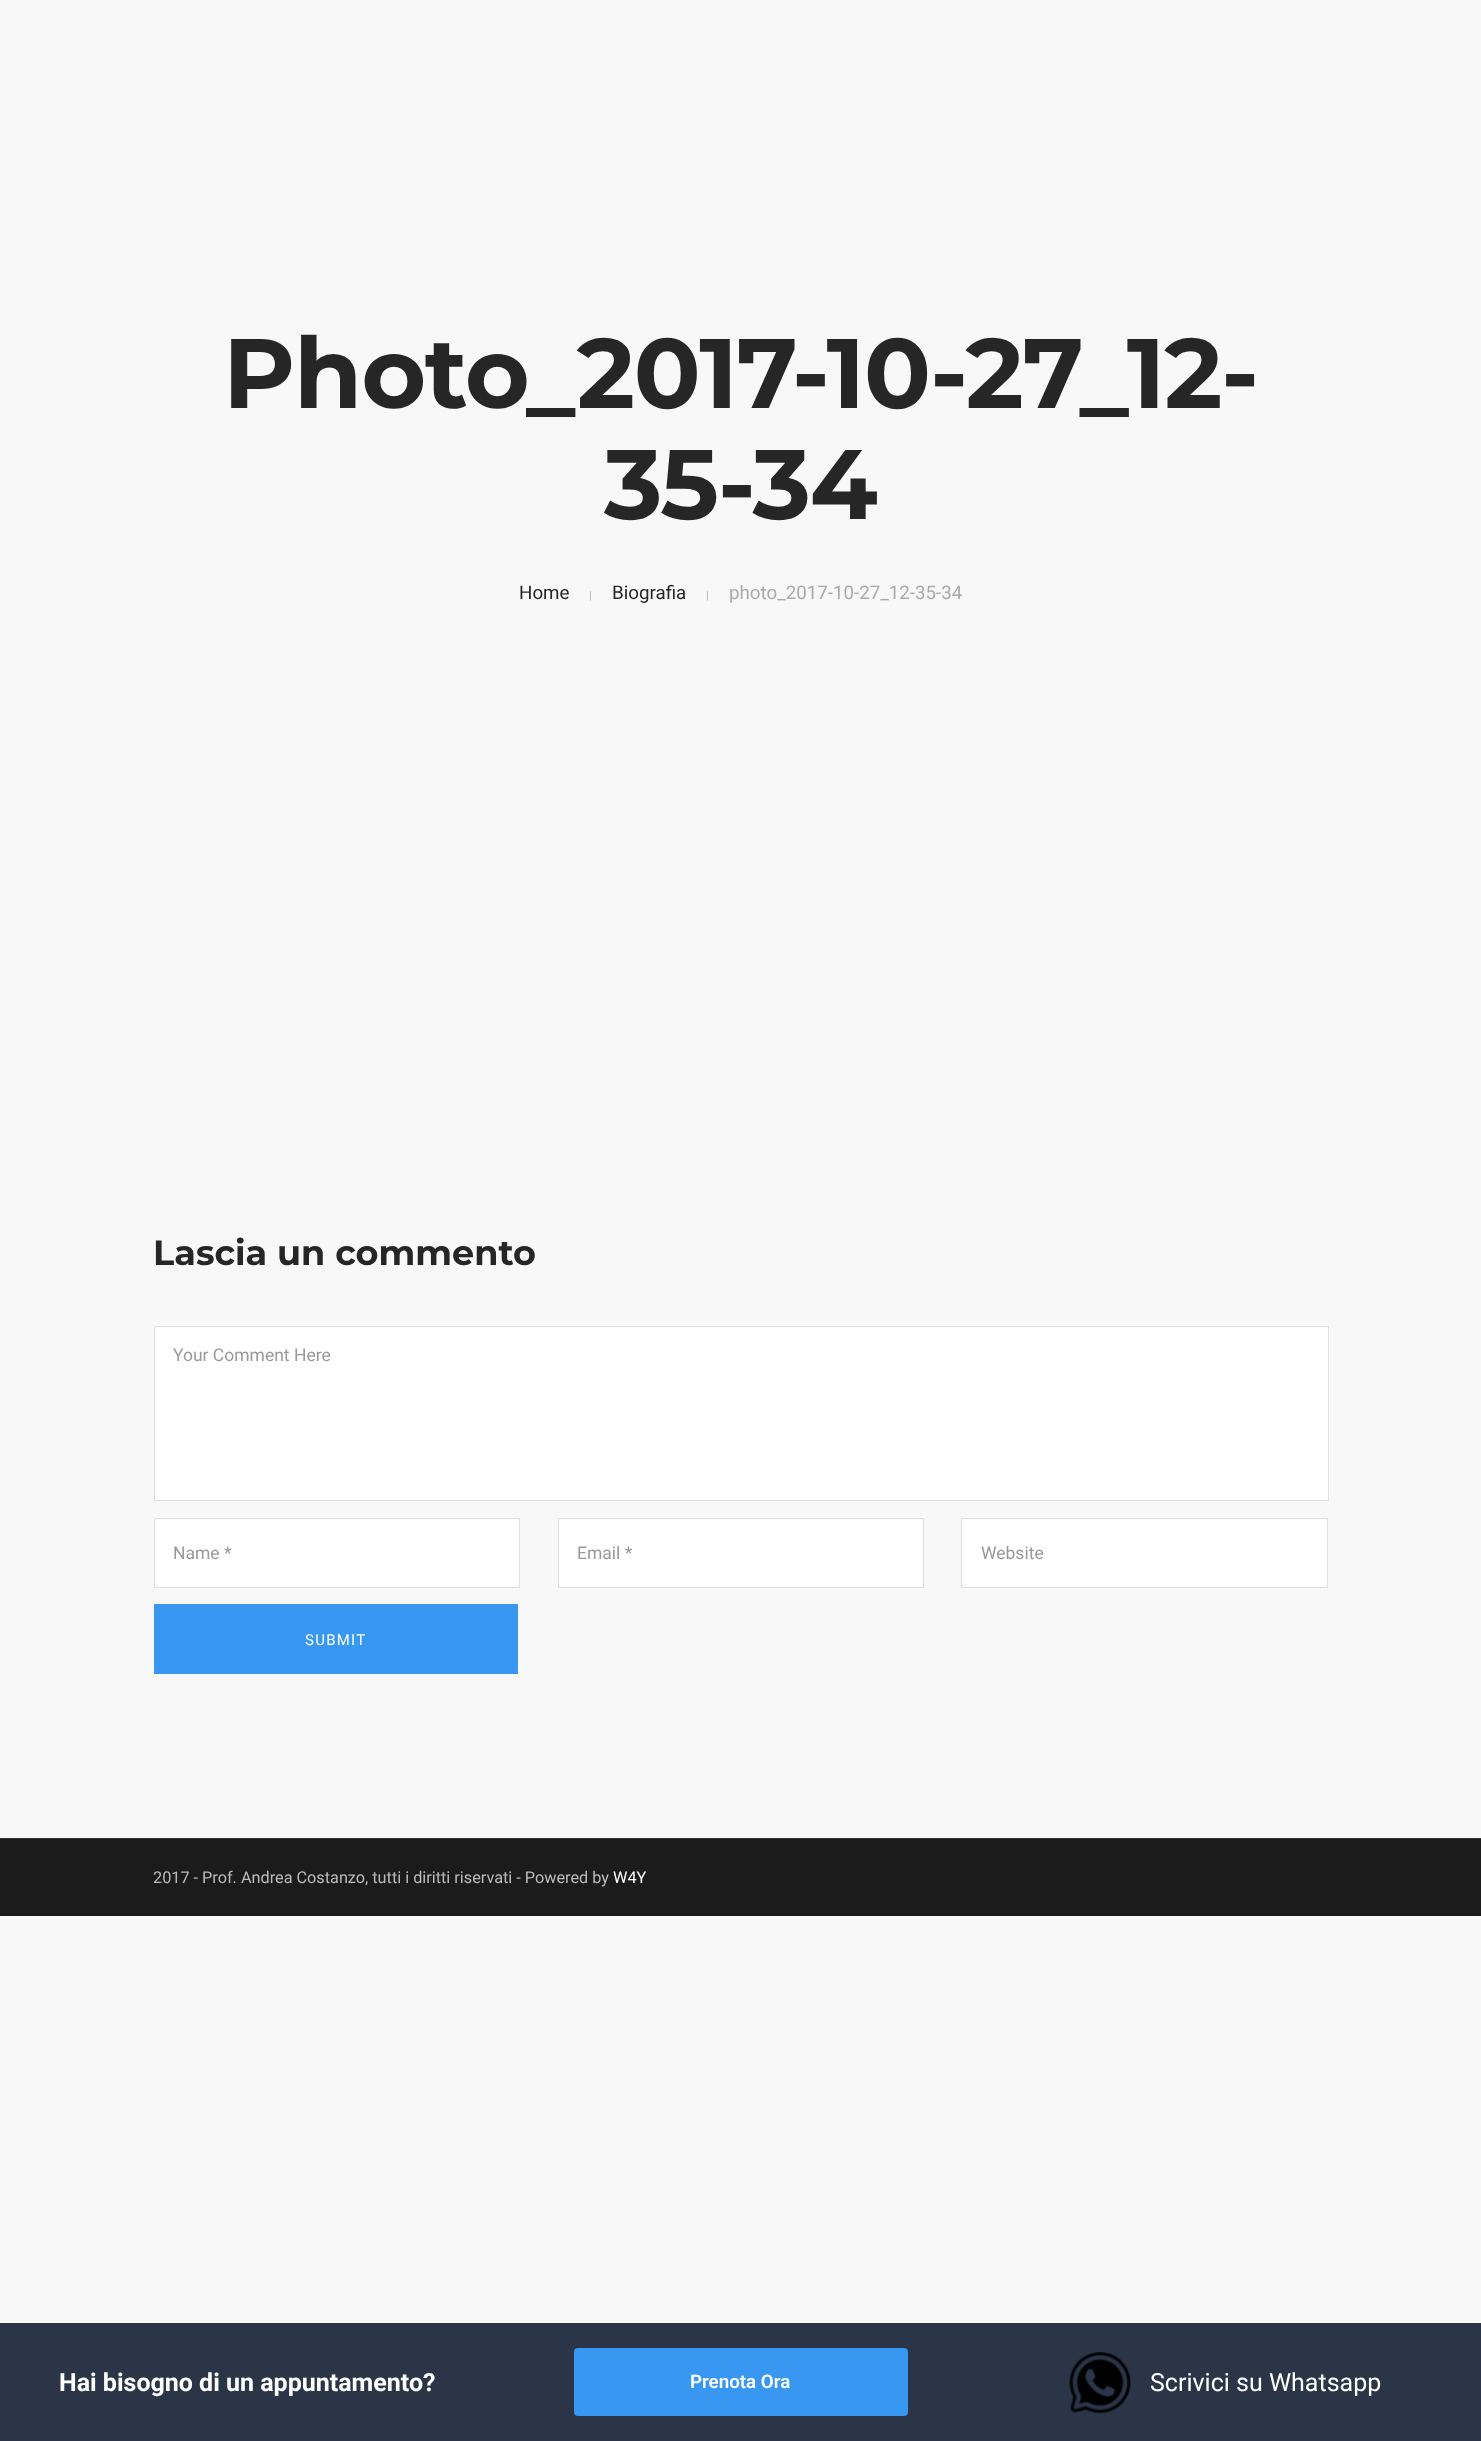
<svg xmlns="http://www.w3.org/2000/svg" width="1481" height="2441">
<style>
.a{font:bold 98.75px Montserrat;letter-spacing:-1.25px;fill:#262626}
.b{font:18.75px Roboto;fill:#262626}
.c{font:11px Roboto;fill:#aaa}
.d{font:18.75px Roboto;fill:#aaa}
.e{font:bold 35px Montserrat;fill:#262626}
.f{font:17.5px Roboto;fill:#999}
.g{font:15px Roboto;letter-spacing:1.25px;fill:#fff}
.h{font:16.25px Roboto;fill:#bbb}
.i{font:16.25px Roboto;fill:#fff}
.j{font:bold 25px Roboto;fill:#fff}
.k{font:600 18.75px Roboto;fill:#fff}
.l{font:25px Roboto;fill:#fff}
</style>
<rect width="100%" height="100%" fill="#f8f8f8"/>
<path fill="#fff" stroke="#dfdfdf" d="M154.5 1326.5h1174v174H154.5z"/>
<path fill="#fff" stroke="#dfdfdf" d="M154.5 1518.5h365v69H154.5z"/>
<path fill="#fff" stroke="#dfdfdf" d="M558.5 1518.5h365v69H558.5z"/>
<path fill="#fff" stroke="#dfdfdf" d="M961.5 1518.5h366v69H961.5z"/>
<path fill="#3897f0" d="M154 1604h364v70H154z"/>
<path fill="#1b1b1b" d="M0 1839h1481v77H0z"/>
<path fill="#323232" d="M0 1838h1481v1H0z"/>
<path fill="#2a3548" d="M0 2323h1481v118H0z"/>
<rect fill="#3897f0" x="574" y="2348" width="334" height="68" rx="4"/>
<image href="1.png" x="1069" y="2352" width="62" height="62"/>
<text class="a" x="223" y="408">Photo_2017-10-27_12-</text>
<text class="a" x="604" y="519">35-34</text>
<text class="b" x="519" y="599">Home</text>
<text class="c" x="589" y="599">|</text>
<text class="b" x="612" y="599">Biografia</text>
<text class="c" x="706" y="599">|</text>
<text class="d" x="729" y="599">photo_2017-10-27_12-35-34</text>
<text class="e" x="153" y="1265">Lascia un commento</text>
<text class="f" x="173" y="1361">Your Comment Here</text>
<text class="f" x="173" y="1559">Name *</text>
<text class="f" x="577" y="1559">Email *</text>
<text class="f" x="981" y="1559">Website</text>
<text class="g" x="305" y="1645">SUBMIT</text>
<text class="h" x="153" y="1883">2017 - Prof. Andrea Costanzo, tutti i diritti riservati - Powered by</text>
<text class="i" x="613" y="1883">W4Y</text>
<text class="j" x="59" y="2391">Hai bisogno di un appuntamento?</text>
<text class="k" x="690" y="2388">Prenota Ora</text>
<text class="l" x="1150" y="2391">Scrivici su Whatsapp</text>
</svg>
